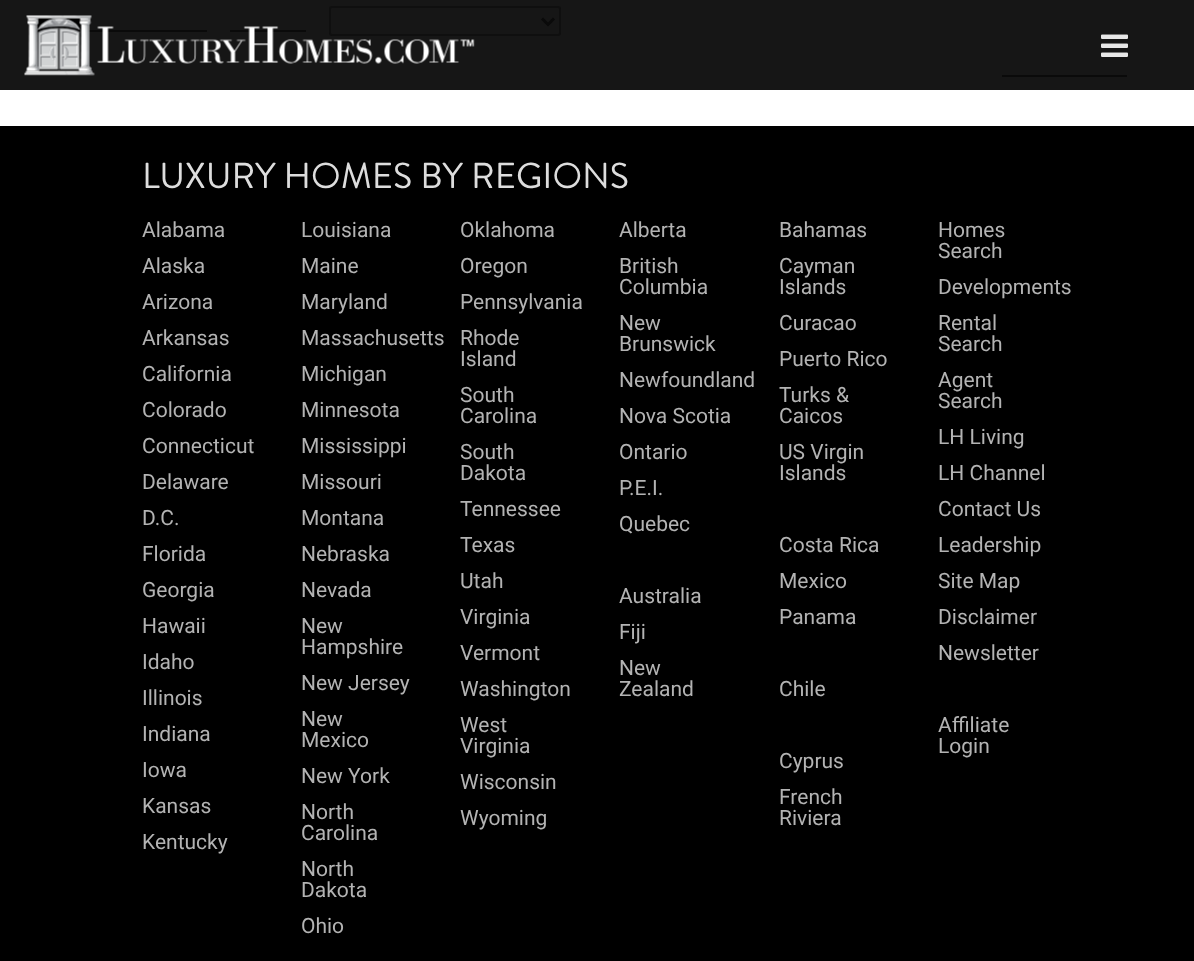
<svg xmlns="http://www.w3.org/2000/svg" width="1194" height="961">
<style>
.a{font:36px Brandon Grotesque;fill:#ddd}
.b{font:21px Roboto;fill:#b3b3b3}
</style>
<rect width="100%" height="100%" fill="#fff"/>
<path fill="#161616" d="M0 0h1194v90H0z"/>
<path fill="#0a0a0a" d="M88 30h119v2H88z"/>
<path fill="#0a0a0a" d="M230 30h76v2H230z"/>
<rect fill="none" stroke="#0f0f0f" stroke-width="2" x="330" y="7" width="230" height="28" rx="2"/>
<path fill="none" stroke="#0a0a0a" stroke-width="3" d="M542 18.5l6 6l6-6"/>
<path fill="#0a0a0a" d="M1002 75h125v2H1002z"/>
<image href="1.png" x="24" y="15" width="451" height="61"/>
<image href="2.png" x="1101" y="34" width="27" height="23"/>
<path fill="#000" d="M0 126h1194v835H0z"/>
<text class="a" x="142" y="188">LUXURY HOMES BY REGIONS</text>
<text class="b" x="142" y="237">Alabama</text>
<text class="b" x="142" y="273">Alaska</text>
<text class="b" x="142" y="309">Arizona</text>
<text class="b" x="142" y="345">Arkansas</text>
<text class="b" x="142" y="381">California</text>
<text class="b" x="142" y="417">Colorado</text>
<text class="b" x="142" y="453">Connecticut</text>
<text class="b" x="142" y="489">Delaware</text>
<text class="b" x="142" y="525">D.C.</text>
<text class="b" x="142" y="561">Florida</text>
<text class="b" x="142" y="597">Georgia</text>
<text class="b" x="142" y="633">Hawaii</text>
<text class="b" x="142" y="669">Idaho</text>
<text class="b" x="142" y="705">Illinois</text>
<text class="b" x="142" y="741">Indiana</text>
<text class="b" x="142" y="777">Iowa</text>
<text class="b" x="142" y="813">Kansas</text>
<text class="b" x="142" y="849">Kentucky</text>
<text class="b" x="301" y="237">Louisiana</text>
<text class="b" x="301" y="273">Maine</text>
<text class="b" x="301" y="309">Maryland</text>
<text class="b" x="301" y="345">Massachusetts</text>
<text class="b" x="301" y="381">Michigan</text>
<text class="b" x="301" y="417">Minnesota</text>
<text class="b" x="301" y="453">Mississippi</text>
<text class="b" x="301" y="489">Missouri</text>
<text class="b" x="301" y="525">Montana</text>
<text class="b" x="301" y="561">Nebraska</text>
<text class="b" x="301" y="597">Nevada</text>
<text class="b" x="301" y="633">New</text>
<text class="b" x="301" y="654">Hampshire</text>
<text class="b" x="301" y="690">New Jersey</text>
<text class="b" x="301" y="726">New</text>
<text class="b" x="301" y="747">Mexico</text>
<text class="b" x="301" y="783">New York</text>
<text class="b" x="301" y="819">North</text>
<text class="b" x="301" y="840">Carolina</text>
<text class="b" x="301" y="876">North</text>
<text class="b" x="301" y="897">Dakota</text>
<text class="b" x="301" y="933">Ohio</text>
<text class="b" x="460" y="237">Oklahoma</text>
<text class="b" x="460" y="273">Oregon</text>
<text class="b" x="460" y="309">Pennsylvania</text>
<text class="b" x="460" y="345">Rhode</text>
<text class="b" x="460" y="366">Island</text>
<text class="b" x="460" y="402">South</text>
<text class="b" x="460" y="423">Carolina</text>
<text class="b" x="460" y="459">South</text>
<text class="b" x="460" y="480">Dakota</text>
<text class="b" x="460" y="516">Tennessee</text>
<text class="b" x="460" y="552">Texas</text>
<text class="b" x="460" y="588">Utah</text>
<text class="b" x="460" y="624">Virginia</text>
<text class="b" x="460" y="660">Vermont</text>
<text class="b" x="460" y="696">Washington</text>
<text class="b" x="460" y="732">West</text>
<text class="b" x="460" y="753">Virginia</text>
<text class="b" x="460" y="789">Wisconsin</text>
<text class="b" x="460" y="825">Wyoming</text>
<text class="b" x="619" y="237">Alberta</text>
<text class="b" x="619" y="273">British</text>
<text class="b" x="619" y="294">Columbia</text>
<text class="b" x="619" y="330">New</text>
<text class="b" x="619" y="351">Brunswick</text>
<text class="b" x="619" y="387">Newfoundland</text>
<text class="b" x="619" y="423">Nova Scotia</text>
<text class="b" x="619" y="459">Ontario</text>
<text class="b" x="619" y="495">P.E.I.</text>
<text class="b" x="619" y="531">Quebec</text>
<text class="b" x="619" y="603">Australia</text>
<text class="b" x="619" y="639">Fiji</text>
<text class="b" x="619" y="675">New</text>
<text class="b" x="619" y="696">Zealand</text>
<text class="b" x="779" y="237">Bahamas</text>
<text class="b" x="779" y="273">Cayman</text>
<text class="b" x="779" y="294">Islands</text>
<text class="b" x="779" y="330">Curacao</text>
<text class="b" x="779" y="366">Puerto Rico</text>
<text class="b" x="779" y="402">Turks &amp;</text>
<text class="b" x="779" y="423">Caicos</text>
<text class="b" x="779" y="459">US Virgin</text>
<text class="b" x="779" y="480">Islands</text>
<text class="b" x="779" y="552">Costa Rica</text>
<text class="b" x="779" y="588">Mexico</text>
<text class="b" x="779" y="624">Panama</text>
<text class="b" x="779" y="696">Chile</text>
<text class="b" x="779" y="768">Cyprus</text>
<text class="b" x="779" y="804">French</text>
<text class="b" x="779" y="825">Riviera</text>
<text class="b" x="938" y="237">Homes</text>
<text class="b" x="938" y="258">Search</text>
<text class="b" x="938" y="294">Developments</text>
<text class="b" x="938" y="330">Rental</text>
<text class="b" x="938" y="351">Search</text>
<text class="b" x="938" y="387">Agent</text>
<text class="b" x="938" y="408">Search</text>
<text class="b" x="938" y="444">LH Living</text>
<text class="b" x="938" y="480">LH Channel</text>
<text class="b" x="938" y="516">Contact Us</text>
<text class="b" x="938" y="552">Leadership</text>
<text class="b" x="938" y="588">Site Map</text>
<text class="b" x="938" y="624">Disclaimer</text>
<text class="b" x="938" y="660">Newsletter</text>
<text class="b" x="938" y="732">Affiliate</text>
<text class="b" x="938" y="753">Login</text>
</svg>
